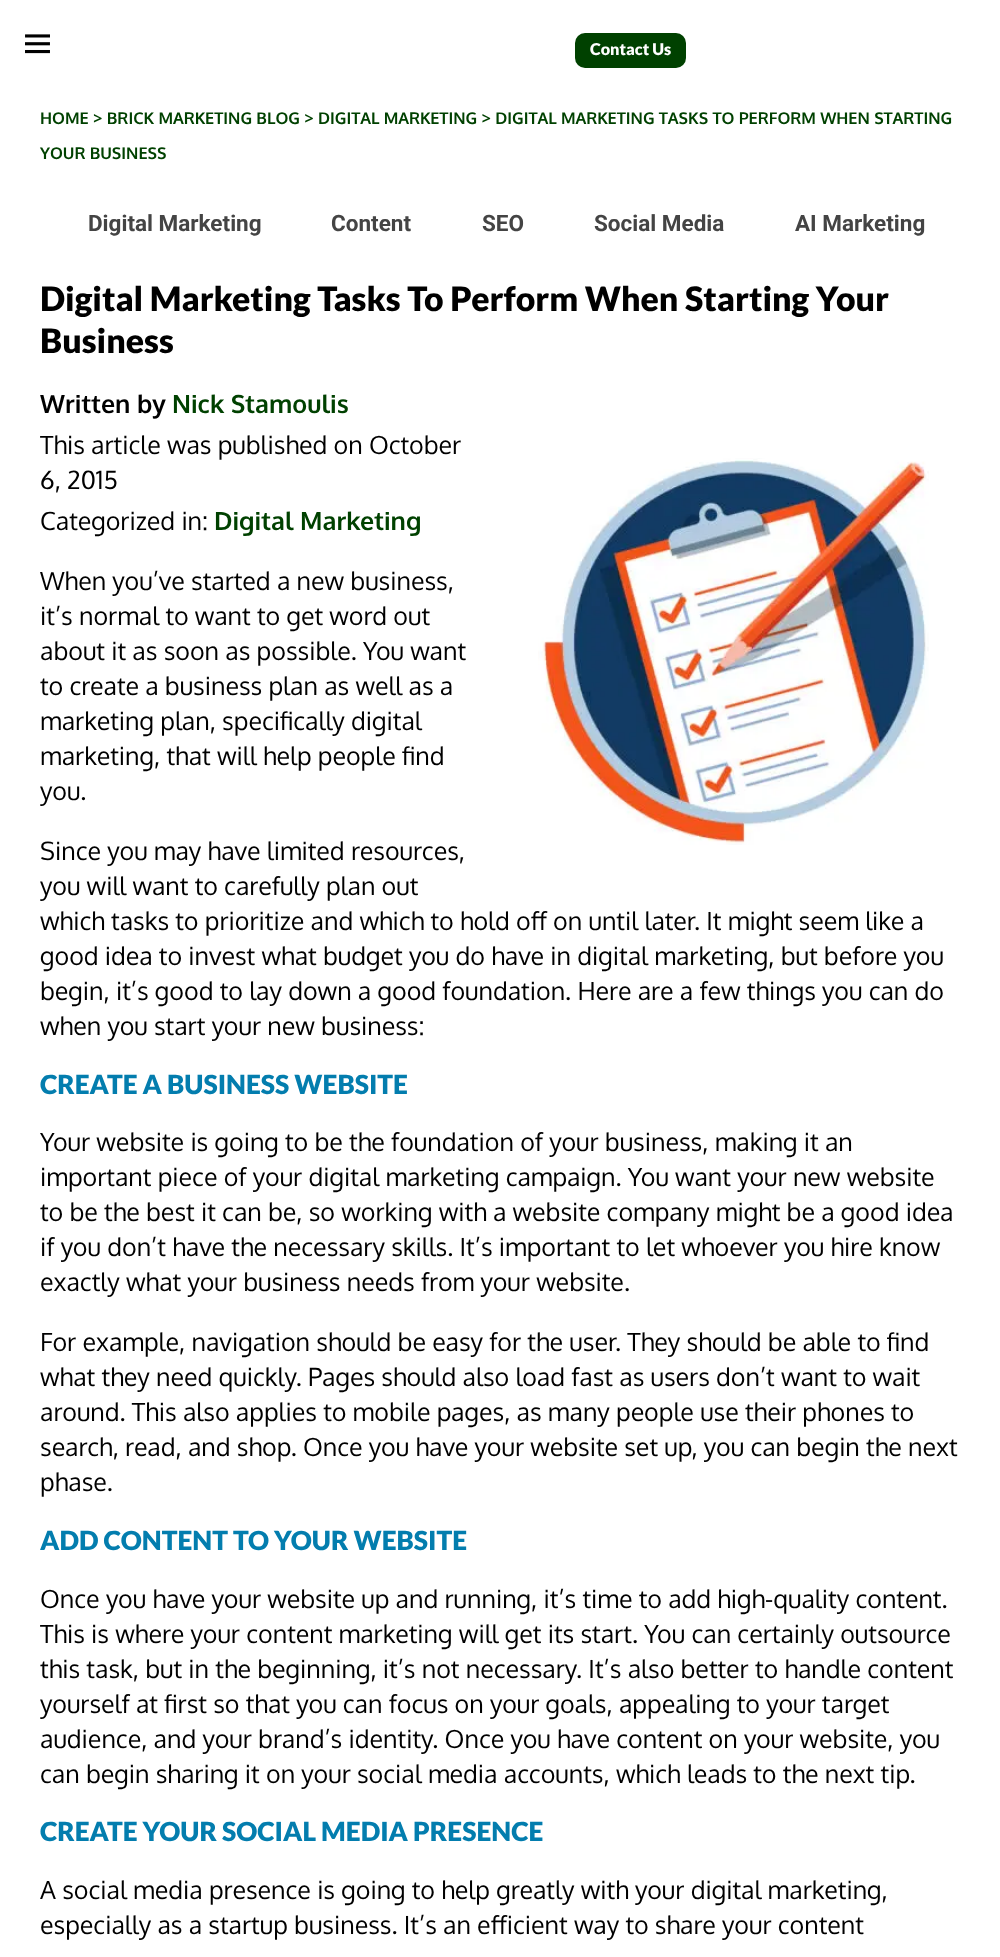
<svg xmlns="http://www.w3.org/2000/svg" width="1000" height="1957">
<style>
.a{font:900 16.25px Lato;fill:#fff}
.b{font:bold 16.25px Oxygen;fill:#004100}
.c{font:bold 22.5px Roboto;fill:#444}
.d{font:900 33.75px Lato;fill:#000}
.e{font:bold 25px Oxygen;fill:#000}
.f{font:bold 25px Oxygen;fill:#004100}
.g{font:25px Oxygen;fill:#000}
.h{font:900 26.3px Lato;fill:#037dae}
</style>
<rect width="100%" height="100%" fill="#fff"/>
<image href="1.png" x="25" y="34" width="25" height="20"/>
<rect fill="#004100" x="575" y="33" width="111" height="35" rx="10"/>
<image href="2.png" x="538" y="458" width="391" height="387"/>
<text class="a" x="590" y="55">Contact Us</text>
<text class="b" x="40" y="124">HOME &gt; BRICK MARKETING BLOG &gt; DIGITAL MARKETING &gt; DIGITAL MARKETING TASKS TO PERFORM WHEN STARTING</text>
<text class="b" x="40" y="159">YOUR BUSINESS</text>
<text class="c" x="88" y="231">Digital Marketing</text>
<text class="c" x="331" y="231">Content</text>
<text class="c" x="482" y="231">SEO</text>
<text class="c" x="594" y="231">Social Media</text>
<text class="c" x="795" y="231">AI Marketing</text>
<text class="d" x="40" y="311">Digital Marketing Tasks To Perform When Starting Your</text>
<text class="d" x="40" y="353">Business</text>
<text class="e" x="40" y="413">Written by</text>
<text class="f" x="172" y="413">Nick Stamoulis</text>
<text class="g" x="40" y="454">This article was published on October</text>
<text class="g" x="40" y="489">6, 2015</text>
<text class="g" x="40" y="530">Categorized in:</text>
<text class="f" x="214" y="530">Digital Marketing</text>
<text class="g" x="40" y="590">When you’ve started a new business,</text>
<text class="g" x="40" y="625">it’s normal to want to get word out</text>
<text class="g" x="40" y="660">about it as soon as possible. You want</text>
<text class="g" x="40" y="695">to create a business plan as well as a</text>
<text class="g" x="40" y="730">marketing plan, specifically digital</text>
<text class="g" x="40" y="765">marketing, that will help people find</text>
<text class="g" x="40" y="800">you.</text>
<text class="g" x="40" y="860">Since you may have limited resources,</text>
<text class="g" x="40" y="895">you will want to carefully plan out</text>
<text class="g" x="40" y="930">which tasks to prioritize and which to hold off on until later. It might seem like a</text>
<text class="g" x="40" y="965">good idea to invest what budget you do have in digital marketing, but before you</text>
<text class="g" x="40" y="1000">begin, it’s good to lay down a good foundation. Here are a few things you can do</text>
<text class="g" x="40" y="1035">when you start your new business:</text>
<text class="h" x="40" y="1094">CREATE A BUSINESS WEBSITE</text>
<text class="g" x="40" y="1151">Your website is going to be the foundation of your business, making it an</text>
<text class="g" x="40" y="1186">important piece of your digital marketing campaign. You want your new website</text>
<text class="g" x="40" y="1221">to be the best it can be, so working with a website company might be a good idea</text>
<text class="g" x="40" y="1256">if you don’t have the necessary skills. It’s important to let whoever you hire know</text>
<text class="g" x="40" y="1291">exactly what your business needs from your website.</text>
<text class="g" x="40" y="1351">For example, navigation should be easy for the user. They should be able to find</text>
<text class="g" x="40" y="1386">what they need quickly. Pages should also load fast as users don’t want to wait</text>
<text class="g" x="40" y="1421">around. This also applies to mobile pages, as many people use their phones to</text>
<text class="g" x="40" y="1456">search, read, and shop. Once you have your website set up, you can begin the next</text>
<text class="g" x="40" y="1491">phase.</text>
<text class="h" x="40" y="1550">ADD CONTENT TO YOUR WEBSITE</text>
<text class="g" x="40" y="1608">Once you have your website up and running, it’s time to add high-quality content.</text>
<text class="g" x="40" y="1643">This is where your content marketing will get its start. You can certainly outsource</text>
<text class="g" x="40" y="1678">this task, but in the beginning, it’s not necessary. It’s also better to handle content</text>
<text class="g" x="40" y="1713">yourself at first so that you can focus on your goals, appealing to your target</text>
<text class="g" x="40" y="1748">audience, and your brand’s identity. Once you have content on your website, you</text>
<text class="g" x="40" y="1783">can begin sharing it on your social media accounts, which leads to the next tip.</text>
<text class="h" x="40" y="1841">CREATE YOUR SOCIAL MEDIA PRESENCE</text>
<text class="g" x="40" y="1899">A social media presence is going to help greatly with your digital marketing,</text>
<text class="g" x="40" y="1934">especially as a startup business. It’s an efficient way to share your content</text>
</svg>
